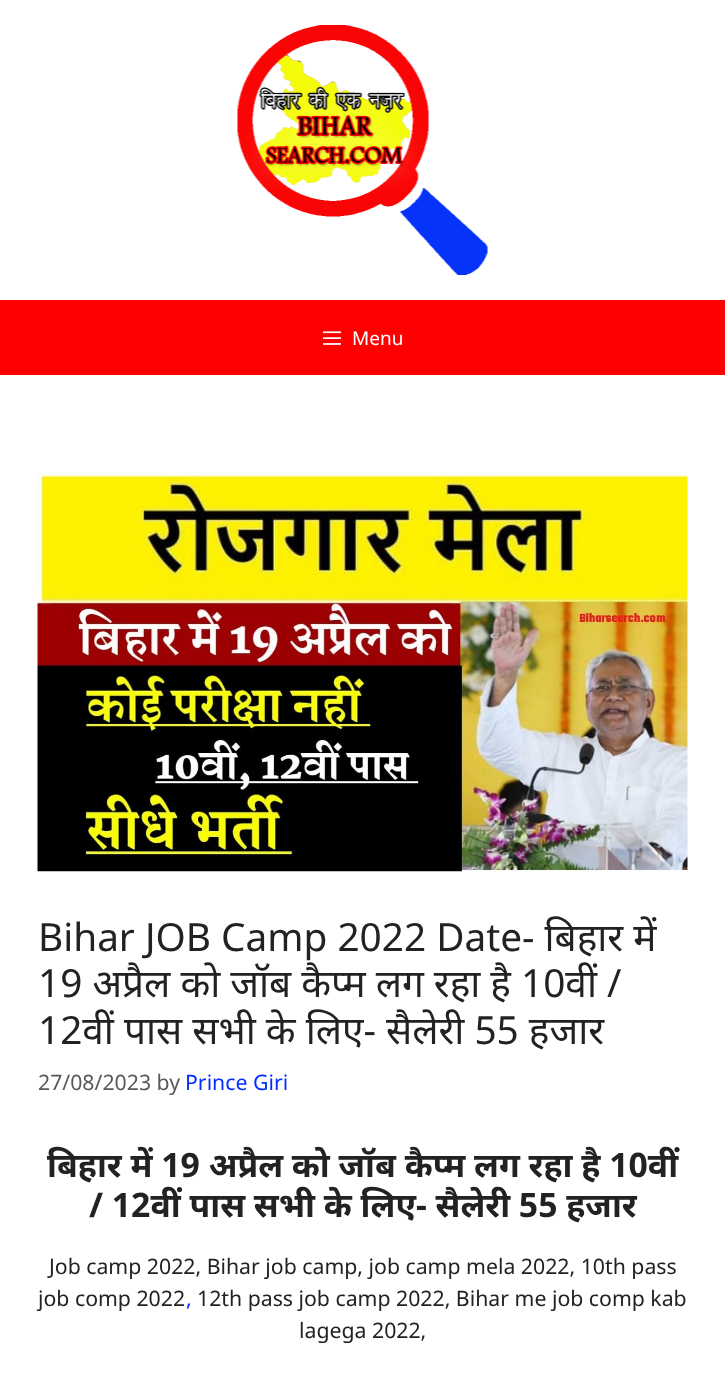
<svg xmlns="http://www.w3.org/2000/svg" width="725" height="1396">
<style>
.a{font:19px Noto Sans;fill:#fff}
.b{font:38.75px Noto Sans;fill:#222}
.c{font:21.25px Noto Sans;fill:#595959}
.d{font:21.25px Noto Sans;fill:#002eff}
.e{font:bold 33.75px Noto Sans;fill:#222}
.f{font:21.25px Noto Sans;fill:#222}
</style>
<rect width="100%" height="100%" fill="#fff"/>
<image href="1.png" x="237" y="25" width="251" height="250"/>
<path fill="#f00" d="M0 300h725v75H0z"/>
<image href="2.png" x="323" y="331" width="18" height="14"/>
<image href="3.png" x="37" y="472" width="651" height="400"/>
<text class="a" x="352" y="345">Menu</text>
<text class="b" x="38" y="951">Bihar JOB Camp 2022 Date- बिहार में</text>
<text class="b" x="38" y="997">19 अप्रैल को जॉब कैप्म लग रहा है 10वीं /</text>
<text class="b" x="38" y="1044">12वीं पास सभी के लिए- सैलेरी 55 हजार</text>
<text class="c" x="38" y="1090">27/08/2023 by</text>
<text class="d" x="185" y="1090">Prince Giri</text>
<text class="e" x="47" y="1177">बिहार में 19 अप्रैल को जॉब कैप्म लग रहा है 10वीं</text>
<text class="e" x="89" y="1217">/ 12वीं पास सभी के लिए- सैलेरी 55 हजार</text>
<text class="f" x="49" y="1274">Job camp 2022, Bihar job camp, job camp mela 2022, 10th pass</text>
<text class="f" x="38" y="1306">job comp 2022</text>
<text class="d" x="186" y="1306">,</text>
<text class="f" x="197" y="1306">12th pass job camp 2022, Bihar me job comp kab</text>
<text class="f" x="299" y="1338">lagega 2022,</text>
</svg>
